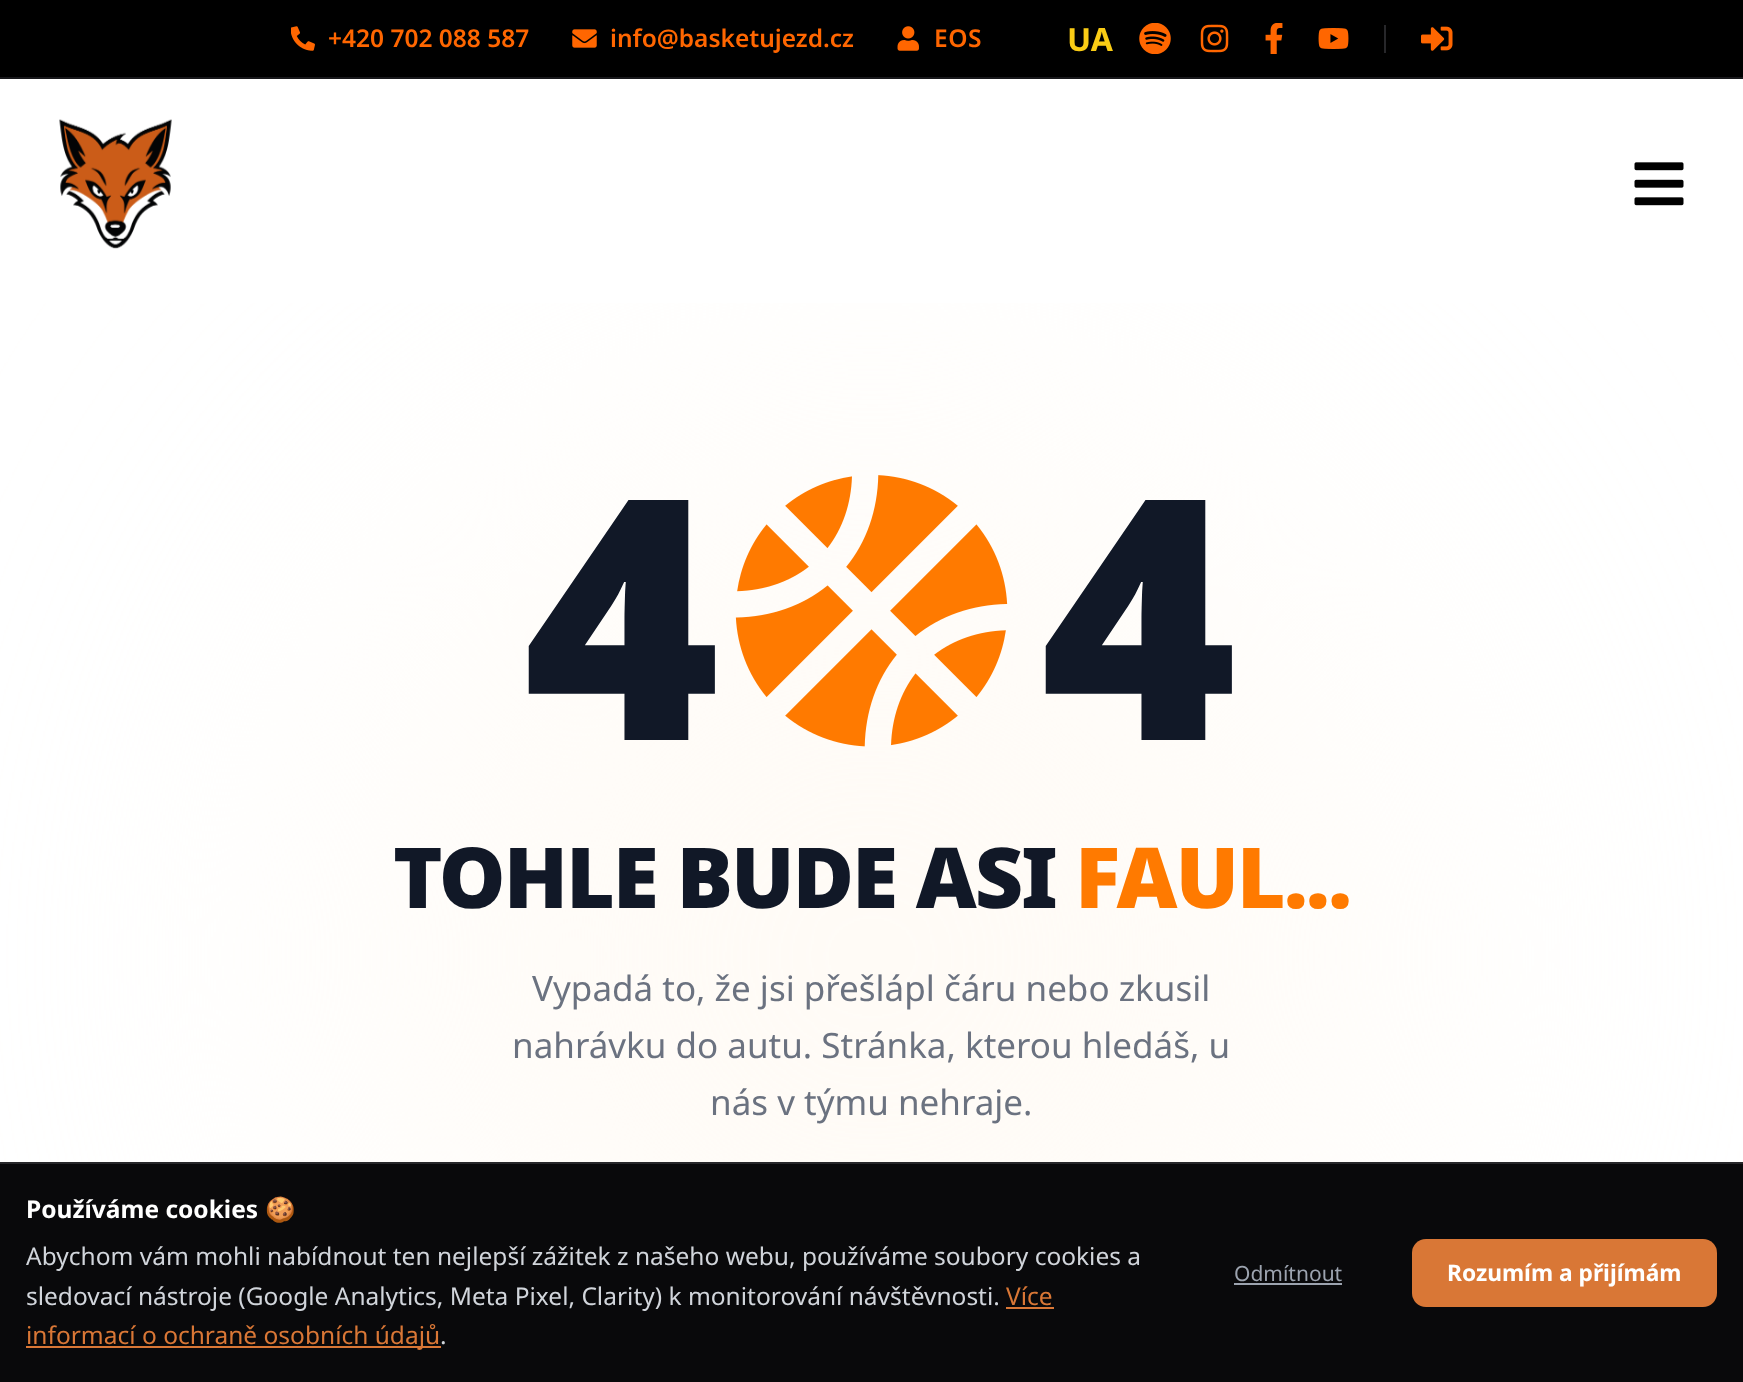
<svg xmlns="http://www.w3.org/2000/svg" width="1743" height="1382">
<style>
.a{font:600 24.5px Noto Sans;fill:#f60}
.b{font:600 24.5px Noto Sans;letter-spacing:0.5px;fill:#f60}
.c{font:bold 32px Noto Sans;fill:#facc15}
.d{font:900 336px Noto Sans;letter-spacing:-17px;fill:#111827}
.e{font:900 84px Noto Sans;letter-spacing:-2.1px;fill:#111827}
.f{font:900 84px Noto Sans;letter-spacing:-2.1px;fill:#ff7a00}
.g{font:35px Noto Sans;fill:#6b7280}
.h{font:bold 24.5px Noto Sans;fill:#fff}
.i{font:bold 24.5px Noto Color Emoji;fill:#fff}
.j{font:24.5px Noto Sans;fill:#d1d5db}
.k{font:24.5px Noto Sans;fill:#d97736}
.l{font:21px Noto Sans;fill:#9ca3af}
.m{font:bold 22.75px Noto Sans;fill:#fff}
</style>
<defs>
<clipPath id="clip1"><path d="M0 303h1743v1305H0z"/></clipPath>
</defs>
<rect width="100%" height="100%" fill="#000"/>
<path fill="#18181b" d="M0 77h1743v2H0z"/>
<image href="1.png" x="291" y="26" width="24" height="25"/>
<image href="2.png" x="572" y="29" width="25" height="19"/>
<image href="3.png" x="897" y="26" width="22" height="25"/>
<image href="4.png" x="1139" y="23" width="32" height="31"/>
<image href="5.png" x="1200" y="24" width="29" height="29"/>
<image href="6.png" x="1265" y="23" width="18" height="31"/>
<image href="7.png" x="1318" y="28" width="31" height="21"/>
<path fill="#27272a" d="M1384 25h2v28H1384z"/>
<image href="8.png" x="1421" y="26" width="32" height="25"/>
<path fill="#fff" d="M0 303h1743v859H0z"/>
<g clip-path="url(#clip1)">
<rect fill="#fffbf6" filter="blur(210px)" x="347" y="431" width="1050" height="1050" rx="525"/>
</g>
<path fill="#fff" d="M0 79h1743v224H0z"/>
<image href="9.png" x="59" y="119" width="113" height="130"/>
<image href="10.png" x="1634" y="162" width="50" height="44"/>
<image href="11.png" x="735" y="475" width="273" height="272"/>
<path fill="#09090b" d="M0 1164h1743v218H0z"/>
<path fill="#27272a" d="M0 1162h1743v2H0z"/>
<path fill="#d97736" d="M1006 1307h48v2H1006z"/>
<path fill="#d97736" d="M26 1346h415v2H26z"/>
<path fill="#9ca3af" d="M1234 1283h108v2H1234z"/>
<rect fill="#d97736" x="1412" y="1239" width="305" height="68" rx="14"/>
<text class="a" x="328" y="47">+420 702 088 587</text>
<text class="a" x="610" y="47">info@basketujezd.cz</text>
<text class="b" x="934" y="47">EOS</text>
<text class="c" x="1067" y="51">UA</text>
<text class="d" x="523" y="740">4</text>
<text class="d" x="1040" y="740">4</text>
<text class="e" x="393" y="908">TOHLE BUDE ASI</text>
<text class="f" x="1075" y="908">FAUL...</text>
<text class="g" x="532" y="1001">Vypadá to, že jsi přešlápl čáru nebo zkusil</text>
<text class="g" x="512" y="1058">nahrávku do autu. Stránka, kterou hledáš, u</text>
<text class="g" x="710" y="1115">nás v týmu nehraje.</text>
<text class="h" x="26" y="1218">Používáme cookies</text>
<text class="i" x="265" y="1218">🍪</text>
<text class="j" x="26" y="1265">Abychom vám mohli nabídnout ten nejlepší zážitek z našeho webu, používáme soubory cookies a</text>
<text class="j" x="26" y="1305">sledovací nástroje (Google Analytics, Meta Pixel, Clarity) k monitorování návštěvnosti.</text>
<text class="k" x="1006" y="1305">Více</text>
<text class="k" x="26" y="1344">informací o ochraně osobních údajů</text>
<text class="j" x="440" y="1344">.</text>
<text class="l" x="1234" y="1281">Odmítnout</text>
<text class="m" x="1447" y="1281">Rozumím a přijímám</text>
</svg>
